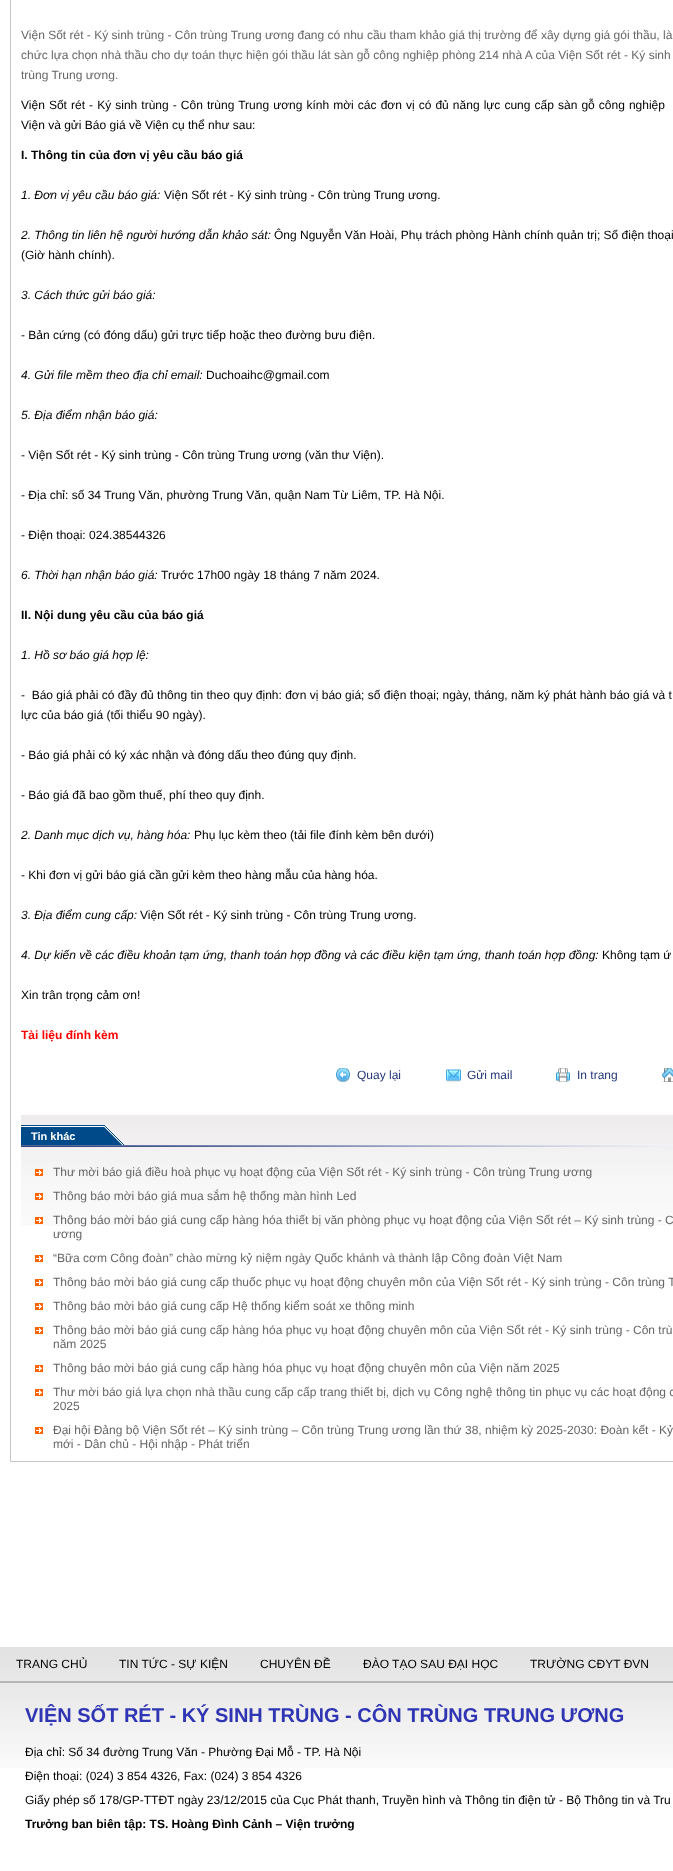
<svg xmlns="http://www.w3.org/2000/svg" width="673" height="1871">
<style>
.a{font:12px Liberation Sans;fill:#666}
.b{font:12px Liberation Sans;fill:#000}
.c{font:bold 12px Liberation Sans;fill:#000}
.d{font:italic 12px Liberation Sans;fill:#000}
.e{font:bold 12px Liberation Sans;fill:#f00}
.f{font:12px Liberation Sans;fill:#24377a}
.g{font:bold 11px Liberation Sans;fill:#fff}
.h{font:bold 20px Liberation Sans;fill:#2f35b3}
</style>
<rect width="100%" height="100%" fill="#fff"/>
<path fill="none" stroke="#c5c5c5" d="M10.5 -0.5h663v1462H10.5z"/>
<image href="1.png" x="336" y="1068" width="14" height="14"/>
<image href="2.png" x="446" y="1069" width="15" height="13"/>
<image href="3.png" x="556" y="1068" width="14" height="14"/>
<image href="4.png" x="662" y="1068" width="11" height="14"/>
<image href="5.png" x="21" y="1115" width="652" height="111"/>
<image href="6.png" x="21" y="1125" width="103" height="20"/>
<image href="7.png" x="21" y="1145" width="652" height="2"/>
<image href="8.png" x="35" y="1169" width="8" height="7"/>
<image href="8.png" x="35" y="1193" width="8" height="7"/>
<image href="8.png" x="35" y="1217" width="8" height="7"/>
<image href="8.png" x="35" y="1255" width="8" height="7"/>
<image href="8.png" x="35" y="1279" width="8" height="7"/>
<image href="8.png" x="35" y="1303" width="8" height="7"/>
<image href="8.png" x="35" y="1327" width="8" height="7"/>
<image href="8.png" x="35" y="1365" width="8" height="7"/>
<image href="8.png" x="35" y="1389" width="8" height="7"/>
<image href="8.png" x="35" y="1427" width="8" height="7"/>
<image href="9.png" x="0" y="1647" width="673" height="121"/>
<path fill="#b8b5b5" d="M0 1681h673v2H0z"/>
<text class="a" x="21" y="39">Viện Sốt rét - Ký sinh trùng - Côn trùng Trung ương đang có nhu cầu tham khảo giá thị trường để xây dựng giá gói thầu, là</text>
<text class="a" x="21" y="59">chức lựa chọn nhà thầu cho dự toán thực hiện gói thầu lát sàn gỗ công nghiệp phòng 214 nhà A của Viện Sốt rét - Ký sinh</text>
<text class="a" x="21" y="79">trùng Trung ương.</text>
<text class="b" x="21" y="109" word-spacing="0.75">Viện Sốt rét - Ký sinh trùng - Côn trùng Trung ương kính mời các đơn vị có đủ năng lực cung cấp sàn gỗ công nghiệp</text>
<text class="b" x="21" y="129">Viện và gửi Báo giá về Viện cụ thể như sau:</text>
<text class="c" x="21" y="159">I. Thông tin của đơn vị yêu cầu báo giá</text>
<text class="d" x="21" y="199">1. Đơn vị yêu cầu báo giá:</text>
<text class="b" x="164" y="199">Viện Sốt rét - Ký sinh trùng - Côn trùng Trung ương.</text>
<text class="d" x="21" y="239">2. Thông tin liên hệ người hướng dẫn khảo sát:</text>
<text class="b" x="274" y="239">Ông Nguyễn Văn Hoài, Phụ trách phòng Hành chính quản trị; Số điện thoại</text>
<text class="b" x="21" y="259">(Giờ hành chính).</text>
<text class="d" x="21" y="299">3. Cách thức gửi báo giá:</text>
<text class="b" x="21" y="339">- Bản cứng (có đóng dấu) gửi trực tiếp hoặc theo đường bưu điện.</text>
<text class="d" x="21" y="379">4. Gửi file mềm theo địa chỉ email:</text>
<text class="b" x="206" y="379">Duchoaihc@gmail.com</text>
<text class="d" x="21" y="419">5. Địa điểm nhận báo giá:</text>
<text class="b" x="21" y="459">- Viện Sốt rét - Ký sinh trùng - Côn trùng Trung ương (văn thư Viện).</text>
<text class="b" x="21" y="499">- Địa chỉ: số 34 Trung Văn, phường Trung Văn, quận Nam Từ Liêm, TP. Hà Nội.</text>
<text class="b" x="21" y="539">- Điện thoại: 024.38544326</text>
<text class="d" x="21" y="579">6. Thời hạn nhận báo giá:</text>
<text class="b" x="161" y="579">Trước 17h00 ngày 18 tháng 7 năm 2024.</text>
<text class="c" x="21" y="619">II. Nội dung yêu cầu của báo giá</text>
<text class="d" x="21" y="659">1. Hồ sơ báo giá hợp lệ:</text>
<text class="b" xml:space="preserve" x="21" y="699">-  Báo giá phải có đầy đủ thông tin theo quy định: đơn vị báo giá; số điện thoại; ngày, tháng, năm ký phát hành báo giá và t</text>
<text class="b" x="21" y="719">lực của báo giá (tối thiểu 90 ngày).</text>
<text class="b" x="21" y="759">- Báo giá phải có ký xác nhận và đóng dấu theo đúng quy định.</text>
<text class="b" x="21" y="799">- Báo giá đã bao gồm thuế, phí theo quy định.</text>
<text class="d" x="21" y="839">2. Danh mục dịch vụ, hàng hóa:</text>
<text class="b" x="194" y="839">Phụ lục kèm theo (tải file đính kèm bên dưới)</text>
<text class="b" x="21" y="879">- Khi đơn vị gửi báo giá cần gửi kèm theo hàng mẫu của hàng hóa.</text>
<text class="d" x="21" y="919">3. Địa điểm cung cấp:</text>
<text class="b" x="140" y="919">Viện Sốt rét - Ký sinh trùng - Côn trùng Trung ương.</text>
<text class="d" x="21" y="959">4. Dự kiến về các điều khoản tạm ứng, thanh toán hợp đồng và các điều kiện tạm ứng, thanh toán hợp đồng:</text>
<text class="b" x="602" y="959">Không tạm ứ</text>
<text class="b" x="21" y="999">Xin trân trọng cảm ơn!</text>
<text class="e" x="21" y="1039">Tài liệu đính kèm</text>
<text class="f" x="357" y="1079">Quay lại</text>
<text class="f" x="467" y="1079">Gửi mail</text>
<text class="f" x="577" y="1079">In trang</text>
<text class="g" x="31" y="1140">Tin khác</text>
<text class="a" x="53" y="1176">Thư mời báo giá điều hoà phục vụ hoạt động của Viện Sốt rét - Ký sinh trùng - Côn trùng Trung ương</text>
<text class="a" x="53" y="1200">Thông báo mời báo giá mua sắm hệ thống màn hình Led</text>
<text class="a" x="53" y="1224">Thông báo mời báo giá cung cấp hàng hóa thiết bị văn phòng phục vụ hoạt động của Viện Sốt rét – Ký sinh trùng - C</text>
<text class="a" x="53" y="1238">ương</text>
<text class="a" x="53" y="1262">“Bữa cơm Công đoàn” chào mừng kỷ niệm ngày Quốc khánh và thành lập Công đoàn Việt Nam</text>
<text class="a" x="53" y="1286">Thông báo mời báo giá cung cấp thuốc phục vụ hoạt động chuyên môn của Viện Sốt rét - Ký sinh trùng - Côn trùng T</text>
<text class="a" x="53" y="1310">Thông báo mời báo giá cung cấp Hệ thống kiểm soát xe thông minh</text>
<text class="a" x="53" y="1334">Thông báo mời báo giá cung cấp hàng hóa phục vụ hoạt động chuyên môn của Viện Sốt rét - Ký sinh trùng - Côn trù</text>
<text class="a" x="53" y="1348">năm 2025</text>
<text class="a" x="53" y="1372">Thông báo mời báo giá cung cấp hàng hóa phục vụ hoạt động chuyên môn của Viện năm 2025</text>
<text class="a" x="53" y="1396">Thư mời báo giá lựa chọn nhà thầu cung cấp cấp trang thiết bị, dịch vụ Công nghệ thông tin phục vụ các hoạt động c</text>
<text class="a" x="53" y="1410">2025</text>
<text class="a" x="53" y="1434">Đại hội Đảng bộ Viện Sốt rét – Ký sinh trùng – Côn trùng Trung ương lần thứ 38, nhiệm kỳ 2025-2030: Đoàn kết - Kỷ</text>
<text class="a" x="53" y="1448">mới - Dân chủ - Hội nhập - Phát triển</text>
<text class="b" x="16" y="1668">TRANG CHỦ</text>
<text class="b" x="119" y="1668">TIN TỨC - SỰ KIỆN</text>
<text class="b" x="260" y="1668">CHUYÊN ĐỀ</text>
<text class="b" x="363" y="1668">ĐÀO TẠO SAU ĐẠI HỌC</text>
<text class="b" x="530" y="1668">TRƯỜNG CĐYT ĐVN</text>
<text class="h" x="25" y="1722">VIỆN SỐT RÉT - KÝ SINH TRÙNG - CÔN TRÙNG TRUNG ƯƠNG</text>
<text class="b" x="25" y="1756">Địa chỉ: Số 34 đường Trung Văn - Phường Đại Mỗ - TP. Hà Nội</text>
<text class="b" x="25" y="1780">Điện thoại: (024) 3 854 4326, Fax: (024) 3 854 4326</text>
<text class="b" x="25" y="1804">Giấy phép số 178/GP-TTĐT ngày 23/12/2015 của Cục Phát thanh, Truyền hình và Thông tin điện tử - Bộ Thông tin và Tru</text>
<text class="c" x="25" y="1828">Trưởng ban biên tập: TS. Hoàng Đình Cảnh – Viện trưởng</text>
</svg>
